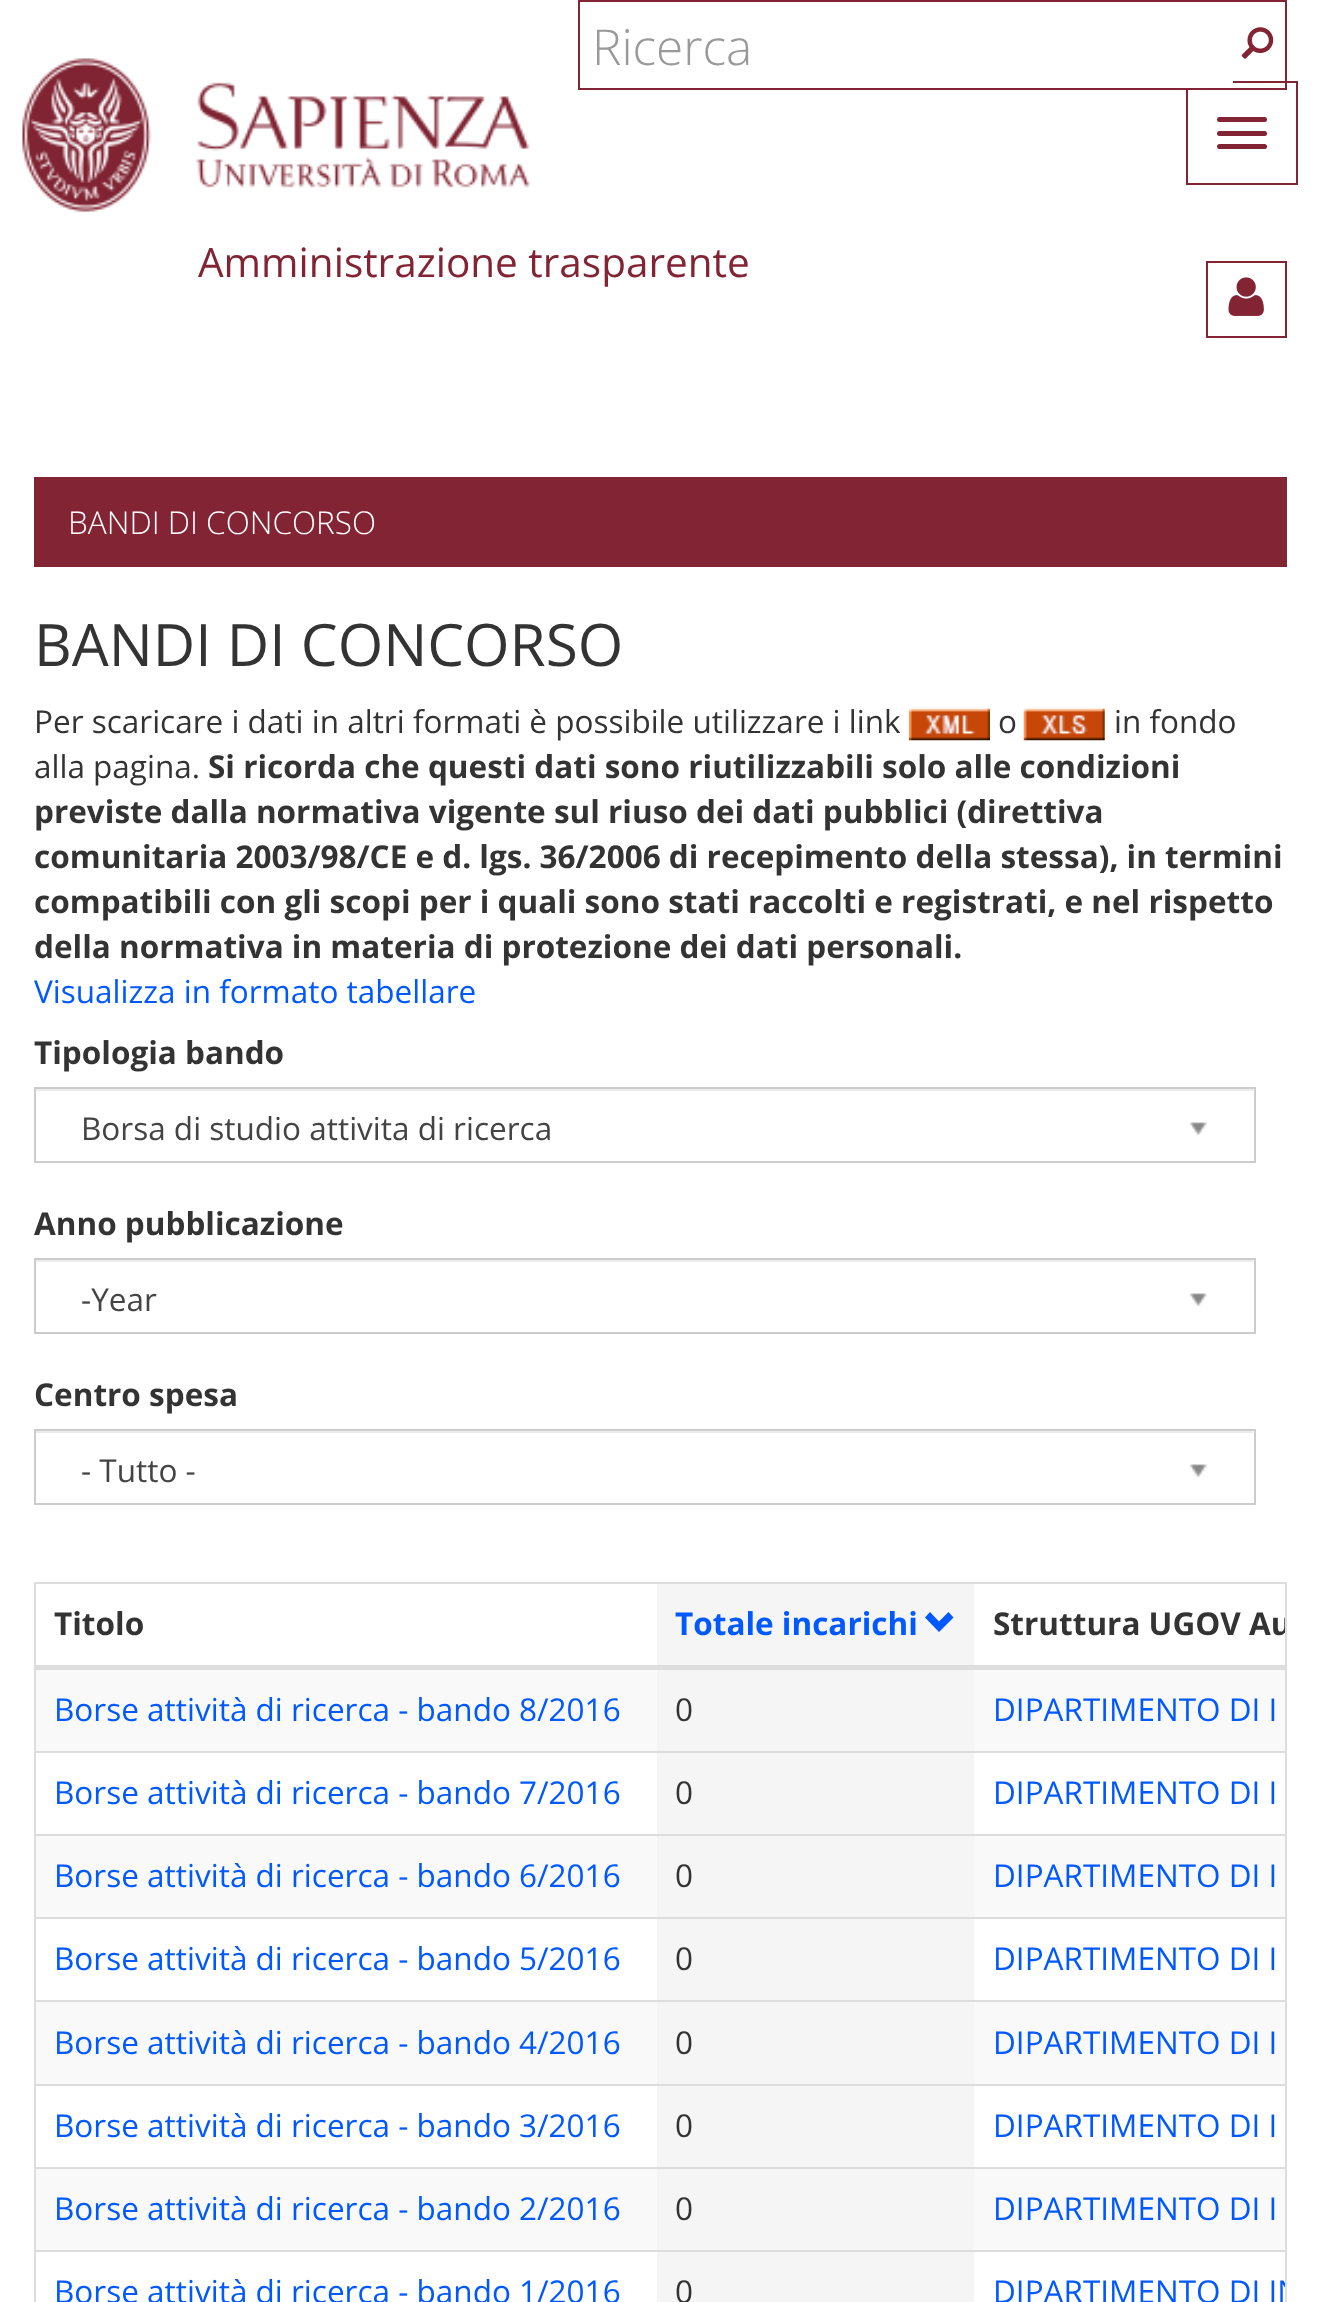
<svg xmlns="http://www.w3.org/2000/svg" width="1319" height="2302">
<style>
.a{font:300 49.5px Open Sans;fill:#999}
.b{font:40.5px Open Sans;fill:#822433}
.c{font:300 31.5px Open Sans;fill:#fff}
.d{font:58.5px Open Sans;fill:#333}
.e{font:31.5px Open Sans;fill:#333}
.f{font:bold 31.5px Open Sans;fill:#333}
.g{font:31.5px Open Sans;fill:#0058ff}
.h{font:31.5px Open Sans;fill:#444}
.i{font:bold 31.5px Open Sans;fill:#0058ff}
</style>
<defs>
<clipPath id="clip1"><path d="M36 1584h1249v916H36z"/></clipPath>
</defs>
<rect width="100%" height="100%" fill="#fff"/>
<path fill="none" stroke="#822433" stroke-width="2" d="M1187 82h110v102H1187z"/>
<path fill="#fff" d="M1186 81h47v7H1186z"/>
<path fill="#822433" d="M578 0h709v2H578z"/>
<path fill="#822433" d="M578 88h655v2H578z"/>
<path fill="#822433" d="M578 0h2v90H578z"/>
<path fill="#822433" d="M1285 0h2v90H1285z"/>
<path fill="#822433" d="M1231 88h56v2H1231z"/>
<image href="1.png" x="1241" y="27" width="33" height="32"/>
<path fill="none" stroke="#822433" stroke-width="2" d="M1207 262h79v75H1207z"/>
<image href="2.png" x="1228" y="277" width="36" height="39"/>
<image href="3.png" x="22" y="58" width="508" height="155"/>
<rect fill="#822433" x="1217" y="117" width="50" height="5" rx="2.5"/>
<rect fill="#822433" x="1217" y="131" width="50" height="5" rx="2.5"/>
<rect fill="#822433" x="1217" y="144" width="50" height="5" rx="2.5"/>
<path fill="#822433" d="M34 477h1253v90H34z"/>
<image href="4.png" x="909" y="708" width="81" height="33"/>
<image href="5.png" x="1023" y="708" width="82" height="33"/>
<path fill="#ececec" d="M36 1089h1217v2H36z"/>
<path fill="none" stroke="#ccc" stroke-width="2" d="M35 1088h1220v74H35z"/>
<image href="6.png" x="1189" y="1122" width="18" height="14"/>
<path fill="#ececec" d="M36 1260h1217v2H36z"/>
<path fill="none" stroke="#ccc" stroke-width="2" d="M35 1259h1220v74H35z"/>
<image href="6.png" x="1189" y="1293" width="18" height="14"/>
<path fill="#ececec" d="M36 1431h1217v2H36z"/>
<path fill="none" stroke="#ccc" stroke-width="2" d="M35 1430h1220v74H35z"/>
<image href="6.png" x="1189" y="1464" width="18" height="14"/>
<path fill="none" stroke="#ddd" stroke-width="2" d="M35 1583h1251v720H35z"/>
<path fill="#f5f5f5" d="M657 1584h317v81H657z"/>
<path fill="#0058ff" d="M953.5 1617.5l-14.5 14.5l-14-14.5l5-5.5l9 9.5l9.5-9.5z"/>
<path fill="#ddd" d="M36 1665h1249v5H36z"/>
<path fill="#f9f9f9" d="M36 1670h1249v81H36z"/>
<path fill="#f5f5f5" d="M657 1670h317v81H657z"/>
<path fill="#f5f5f5" d="M657 1753h317v81H657z"/>
<path fill="#ddd" d="M36 1751h1249v2H36z"/>
<path fill="#f9f9f9" d="M36 1836h1249v81H36z"/>
<path fill="#f5f5f5" d="M657 1836h317v81H657z"/>
<path fill="#ddd" d="M36 1834h1249v2H36z"/>
<path fill="#f5f5f5" d="M657 1919h317v81H657z"/>
<path fill="#ddd" d="M36 1917h1249v2H36z"/>
<path fill="#f9f9f9" d="M36 2002h1249v82H36z"/>
<path fill="#f5f5f5" d="M657 2002h317v82H657z"/>
<path fill="#ddd" d="M36 2000h1249v2H36z"/>
<path fill="#f5f5f5" d="M657 2086h317v81H657z"/>
<path fill="#ddd" d="M36 2084h1249v2H36z"/>
<path fill="#f9f9f9" d="M36 2169h1249v81H36z"/>
<path fill="#f5f5f5" d="M657 2169h317v81H657z"/>
<path fill="#ddd" d="M36 2167h1249v2H36z"/>
<path fill="#f5f5f5" d="M657 2252h317v50H657z"/>
<path fill="#ddd" d="M36 2250h1249v2H36z"/>
<text class="a" x="592" y="65">Ricerca</text>
<text class="b" x="198" y="277">Amministrazione trasparente</text>
<text class="c" x="68" y="534">BANDI DI CONCORSO</text>
<text class="d" x="34" y="666">BANDI DI CONCORSO</text>
<text class="e" x="34" y="733">Per scaricare i dati in altri formati è possibile utilizzare i link</text>
<text class="e" x="998" y="733">o</text>
<text class="e" x="1114" y="733">in fondo</text>
<text class="e" x="34" y="778">alla pagina.</text>
<text class="f" x="208" y="778">Si ricorda che questi dati sono riutilizzabili solo alle condizioni</text>
<text class="f" x="34" y="823">previste dalla normativa vigente sul riuso dei dati pubblici (direttiva</text>
<text class="f" x="34" y="868">comunitaria 2003/98/CE e d. lgs. 36/2006 di recepimento della stessa), in termini</text>
<text class="f" x="34" y="913">compatibili con gli scopi per i quali sono stati raccolti e registrati, e nel rispetto</text>
<text class="f" x="34" y="958">della normativa in materia di protezione dei dati personali.</text>
<text class="g" x="34" y="1003">Visualizza in formato tabellare</text>
<text class="f" x="34" y="1064">Tipologia bando</text>
<text class="h" x="81" y="1140">Borsa di studio attivita di ricerca</text>
<text class="f" x="34" y="1235">Anno pubblicazione</text>
<text class="h" x="81" y="1311">-Year</text>
<text class="f" x="34" y="1406">Centro spesa</text>
<text class="h" x="81" y="1482">- Tutto -</text>
<text class="f" x="54" y="1635">Titolo</text>
<text class="i" x="675" y="1635">Totale incarichi</text>
<g clip-path="url(#clip1)">
<text class="f" x="993" y="1635">Struttura UGOV Au</text>
</g>
<text class="g" x="54" y="1721">Borse attività di ricerca - bando 8/2016</text>
<text class="e" x="675" y="1721">0</text>
<text class="g" x="993" y="1721">DIPARTIMENTO DI I</text>
<text class="g" x="54" y="1804">Borse attività di ricerca - bando 7/2016</text>
<text class="e" x="675" y="1804">0</text>
<text class="g" x="993" y="1804">DIPARTIMENTO DI I</text>
<text class="g" x="54" y="1887">Borse attività di ricerca - bando 6/2016</text>
<text class="e" x="675" y="1887">0</text>
<text class="g" x="993" y="1887">DIPARTIMENTO DI I</text>
<text class="g" x="54" y="1970">Borse attività di ricerca - bando 5/2016</text>
<text class="e" x="675" y="1970">0</text>
<text class="g" x="993" y="1970">DIPARTIMENTO DI I</text>
<text class="g" x="54" y="2054">Borse attività di ricerca - bando 4/2016</text>
<text class="e" x="675" y="2054">0</text>
<text class="g" x="993" y="2054">DIPARTIMENTO DI I</text>
<text class="g" x="54" y="2137">Borse attività di ricerca - bando 3/2016</text>
<text class="e" x="675" y="2137">0</text>
<text class="g" x="993" y="2137">DIPARTIMENTO DI I</text>
<text class="g" x="54" y="2220">Borse attività di ricerca - bando 2/2016</text>
<text class="e" x="675" y="2220">0</text>
<text class="g" x="993" y="2220">DIPARTIMENTO DI I</text>
<text class="g" x="54" y="2303">Borse attività di ricerca - bando 1/2016</text>
<text class="e" x="675" y="2303">0</text>
<g clip-path="url(#clip1)">
<text class="g" x="993" y="2303">DIPARTIMENTO DI IN</text>
</g>
</svg>
